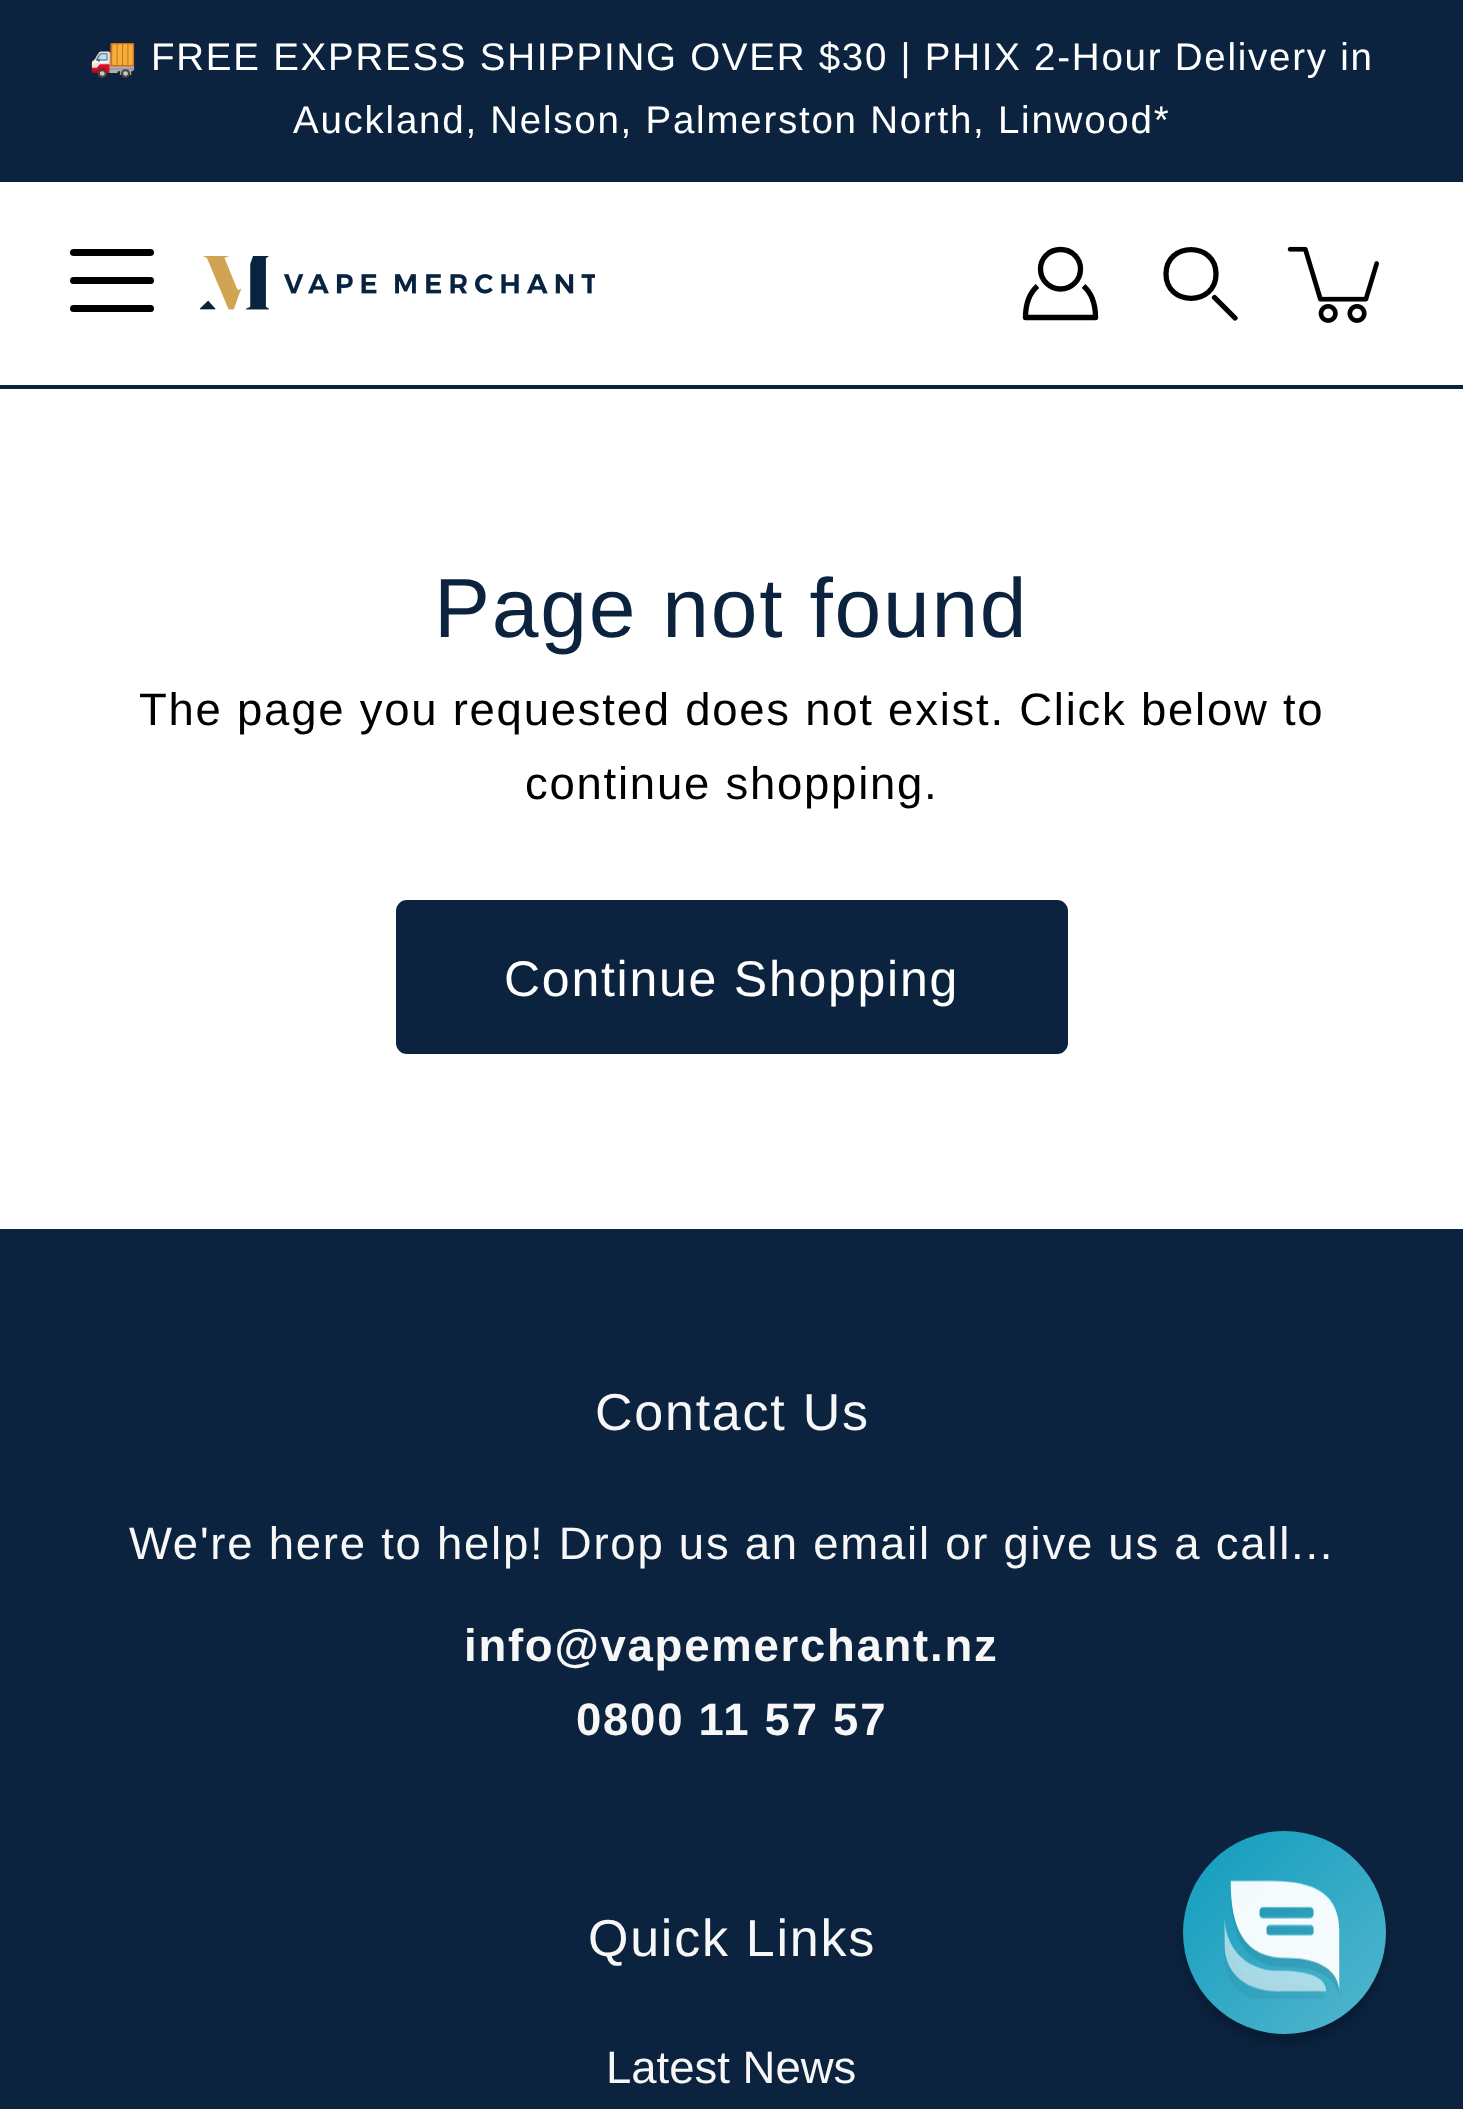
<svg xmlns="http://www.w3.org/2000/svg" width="1463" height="2109">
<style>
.a{font:38.5px Noto Color Emoji;letter-spacing:1.75px;fill:#fff}
.b{font:38.5px Liberation Sans;letter-spacing:1.75px;fill:#fff}
.c{font:84px Liberation Sans;letter-spacing:1.75px;fill:#0b233f}
.d{font:45.5px Liberation Sans;letter-spacing:1.75px;fill:#000}
.e{font:50px Liberation Sans;letter-spacing:1.75px;fill:#fff}
.f{font:52px Liberation Sans;letter-spacing:1.75px;fill:#f7f7f7}
.g{font:45.5px Liberation Sans;letter-spacing:1.75px;fill:#f7f7f7}
.h{font:bold 45.5px Liberation Sans;letter-spacing:1.75px;fill:#f7f7f7}
.i{font:45.5px Liberation Sans;fill:#f7f7f7}
</style>
<defs>
<linearGradient id="g1" gradientUnits="userSpaceOnUse" x1="1183" y1="1831" x2="1386" y2="2034"><stop offset="0" stop-color="#109cbe"/><stop offset="1" stop-color="#54b6ce"/></linearGradient>
</defs>
<rect width="100%" height="100%" fill="#fff"/>
<path fill="#0b233f" d="M0 385h1463v4H0z"/>
<path fill="#0b233f" d="M0 0h1463v182H0z"/>
<rect fill="#000" x="70" y="277" width="84" height="7" rx="3.5"/>
<rect fill="#000" x="70" y="249" width="84" height="7" rx="3.5"/>
<rect fill="#000" x="70" y="305" width="84" height="7" rx="3.5"/>
<image href="1.png" x="200" y="256" width="395" height="54"/>
<path fill="none" stroke="#000" stroke-width="5.3" d="M1080.5 269c0 11-9 20-20 20c-11 0-20-9-20-20c0-11 9-19.5 20-19.5c11 0 20 8.5 20 19.5z"/>
<path fill="none" stroke="#000" stroke-width="5.3" stroke-linejoin="round" d="M1037.5 286c-8 7-12 17.5-12 31.5"/>
<path fill="none" stroke="#000" stroke-width="5.3" stroke-linejoin="round" d="M1083.5 286c8 7 12 17.5 12 31.5"/>
<path fill="none" stroke="#000" stroke-width="5.3" stroke-linecap="round" stroke-linejoin="round" d="M1025.5 317.5h70"/>
<path fill="none" stroke="#000" stroke-width="5.3" d="M1216 274c0 32.5-50 32.5-50 0c0-32.5 50-32.5 50 0z"/>
<path fill="none" stroke="#000" stroke-width="5.3" stroke-linecap="round" d="M1214.5 297.5l20.5 20.5"/>
<image href="2.png" x="1287" y="246" width="92" height="77"/>
<rect fill="#0b233f" stroke="#0b233f" stroke-width="4" x="398" y="902" width="668" height="150" rx="9"/>
<path fill="#0b233f" d="M0 1229h1463v880H0z"/>
<rect fill="#01020333" filter="blur(5px)" x="1183" y="1841" width="203" height="203" rx="101.5"/>
<circle fill="url(#g1)" cx="1284.5" cy="1932.5" r="101.5"/>
<image href="3.png" x="1224" y="1880" width="116" height="119"/>
<text class="a" x="89" y="70">🚚</text>
<text class="b" x="151" y="70">FREE EXPRESS SHIPPING OVER $30 | PHIX 2-Hour Delivery in</text>
<text class="b" x="293" y="133">Auckland, Nelson, Palmerston North, Linwood*</text>
<text class="c" x="434" y="637">Page not found</text>
<text class="d" x="139" y="725">The page you requested does not exist. Click below to</text>
<text class="d" x="525" y="799">continue shopping.</text>
<text class="e" x="504" y="996">Continue Shopping</text>
<text class="f" x="595" y="1430">Contact Us</text>
<text class="g" x="129" y="1559">We're here to help! Drop us an email or give us a call...</text>
<text class="h" x="464" y="1661">info@vapemerchant.nz</text>
<text class="h" x="576" y="1735">0800 11 57 57</text>
<text class="f" x="588" y="1956">Quick Links</text>
<text class="i" x="606" y="2083">Latest News</text>
</svg>
